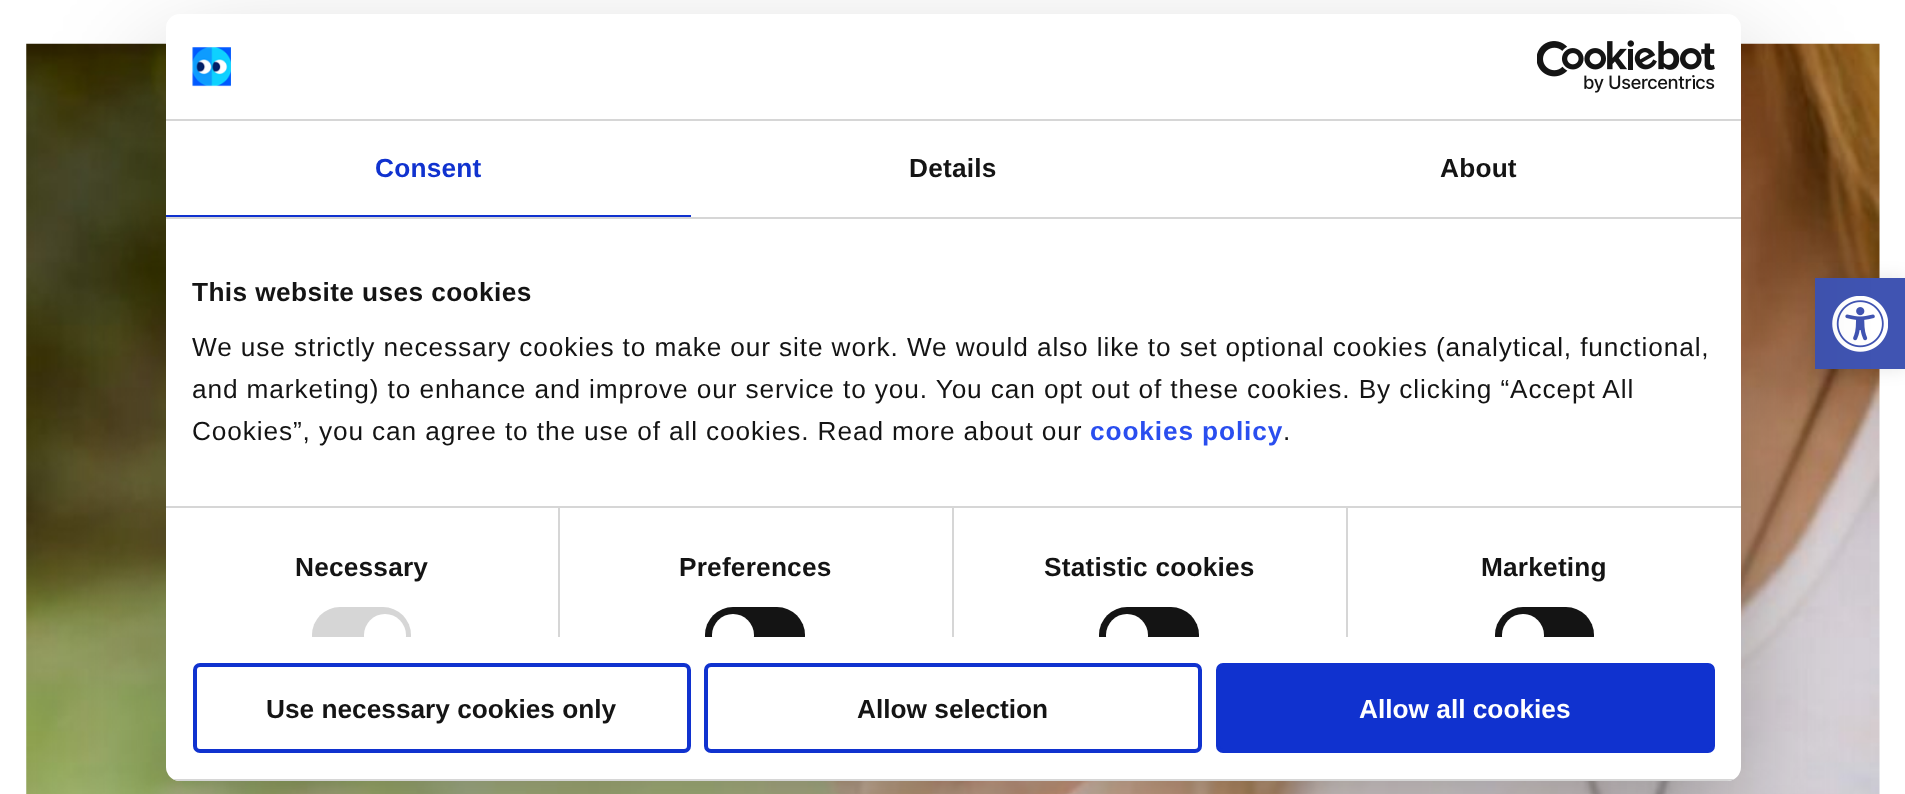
<svg xmlns="http://www.w3.org/2000/svg" width="1905" height="794">
<style>
.a{font:bold 26.25px Liberation Sans;letter-spacing:0.2px;fill:#1032cf}
.b{font:bold 26.25px Liberation Sans;letter-spacing:0.2px;fill:#141414}
.c{font:bold 26.25px Liberation Sans;letter-spacing:0.4px;fill:#141414}
.d{font:26.25px Liberation Sans;letter-spacing:0.88px;fill:#141414}
.e{font:bold 26.25px Liberation Sans;letter-spacing:0.88px;fill:#2a4eef}
.f{font:bold 26.25px Liberation Sans;fill:#141414}
.g{font:bold 26.25px Liberation Sans;fill:#fff}
</style>
<defs>
<clipPath id="clip1"><path d="M166 219h1575v418H166z"/></clipPath>
<clipPath id="clip2"><rect x="166" y="14" width="1575" height="767" rx="14"/></clipPath>
</defs>
<rect width="100%" height="100%" fill="#fff"/>
<image href="1.png" x="26" y="43" width="1854" height="751"/>
<path fill="#0000001a" filter="blur(9px)" d="M1815 278h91v91H1815z"/>
<path fill="#4054b2" d="M1815 278h90v91H1815z"/>
<image href="4.png" x="1832" y="296" width="56" height="56"/>
<rect fill="#0000004d" filter="blur(59.5px)" x="166" y="70" width="1575" height="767" rx="14"/>
<rect fill="#fff" x="166" y="14" width="1575" height="767" rx="14"/>
<path fill="#d6d6d6" d="M166 119h1575v2H166z"/>
<image href="2.png" x="192" y="47" width="39" height="40"/>
<image href="3.png" x="1537" y="40" width="178" height="53"/>
<path fill="#d6d6d6" d="M166 217h1575v2H166z"/>
<path fill="#1032cf" d="M166 215h525v2H166z"/>
<path fill="#d6d6d6" d="M166 506h1575v2H166z"/>
<path fill="#d6d6d6" d="M558 508h2v129H558z"/>
<g clip-path="url(#clip1)">
<rect fill="#d6d6d6" x="312" y="607" width="99" height="56" rx="28"/>
<circle fill="#fff" cx="385" cy="635" r="21"/>
</g>
<path fill="#d6d6d6" d="M952 508h2v129H952z"/>
<g clip-path="url(#clip1)">
<rect fill="#141414" x="705" y="607" width="100" height="56" rx="28"/>
<circle fill="#fff" cx="733" cy="635" r="21"/>
</g>
<path fill="#d6d6d6" d="M1346 508h2v129H1346z"/>
<g clip-path="url(#clip1)">
<rect fill="#141414" x="1099" y="607" width="100" height="56" rx="28"/>
<circle fill="#fff" cx="1127" cy="635" r="21"/>
<rect fill="#141414" x="1495" y="607" width="99" height="56" rx="28"/>
<circle fill="#fff" cx="1523" cy="635" r="21"/>
</g>
<g clip-path="url(#clip2)">
<path fill="#d6d6d6" d="M166 779h1575v2H166z"/>
</g>
<rect fill="none" stroke="#1032cf" stroke-width="4" x="195" y="665" width="494" height="86" rx="5"/>
<rect fill="none" stroke="#1032cf" stroke-width="4" x="706" y="665" width="494" height="86" rx="5"/>
<rect fill="#1032cf" stroke="#1032cf" stroke-width="4" x="1218" y="665" width="495" height="86" rx="5"/>
<text class="a" x="375" y="177">Consent</text>
<text class="b" x="909" y="177">Details</text>
<text class="b" x="1440" y="177">About</text>
<text class="c" x="192" y="301">This website uses cookies</text>
<text class="d" x="192" y="356">We use strictly necessary cookies to make our site work. We would also like to set optional cookies (analytical, functional,</text>
<text class="d" x="192" y="398">and marketing) to enhance and improve our service to you. You can opt out of these cookies. By clicking “Accept All</text>
<text class="d" x="192" y="440">Cookies”, you can agree to the use of all cookies. Read more about our</text>
<text class="e" x="1090" y="440">cookies policy</text>
<text class="d" x="1283" y="440">.</text>
<text class="b" x="295" y="576">Necessary</text>
<text class="b" x="679" y="576">Preferences</text>
<text class="b" x="1044" y="576">Statistic cookies</text>
<text class="b" x="1481" y="576">Marketing</text>
<text class="f" x="266" y="718">Use necessary cookies only</text>
<text class="f" x="857" y="718">Allow selection</text>
<text class="g" x="1359" y="718">Allow all cookies</text>
</svg>
